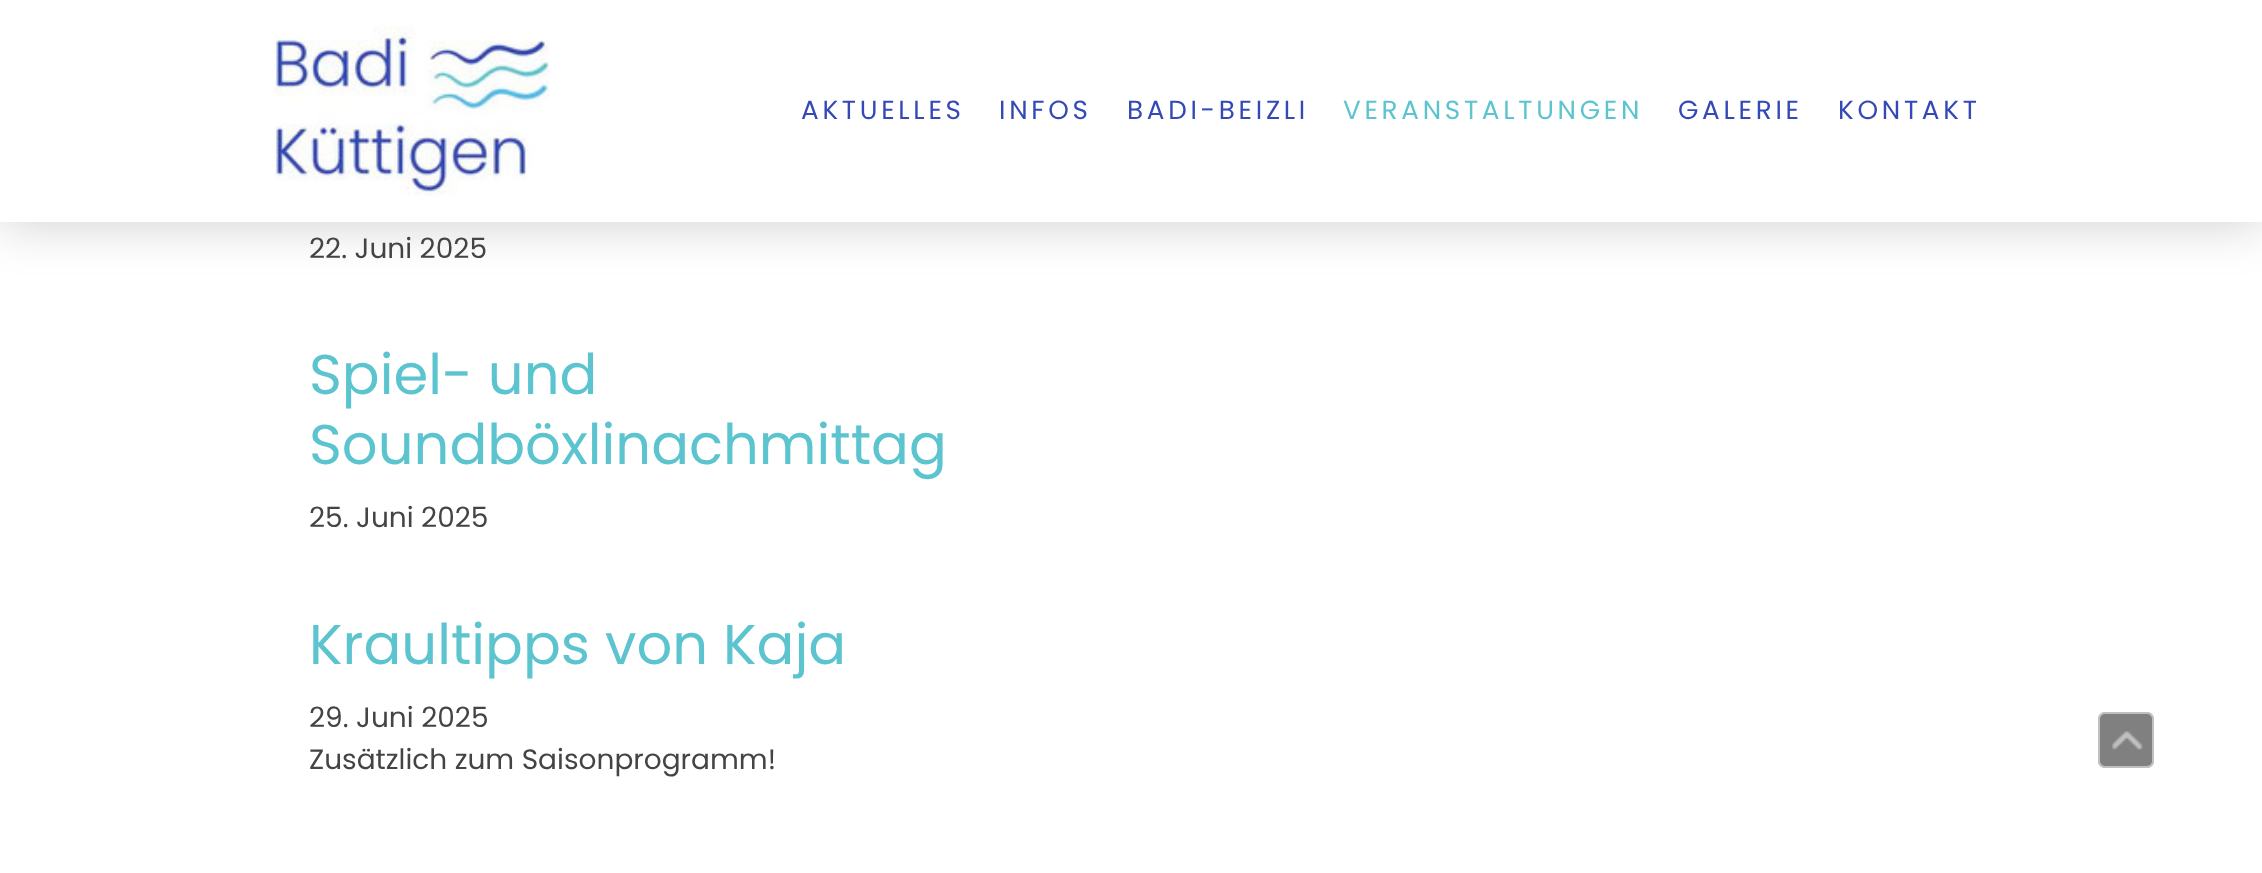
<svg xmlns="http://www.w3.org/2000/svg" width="2262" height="873">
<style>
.a{font:26.25px Poppins;letter-spacing:3.7px;fill:#3449b6}
.b{font:26.25px Poppins;letter-spacing:3.7px;fill:#5cc4cf}
.c{font:28px Poppins;fill:#444}
.d{font:56px Poppins;fill:#5cc4cf}
</style>
<rect width="100%" height="100%" fill="#fff"/>
<path fill="#00000033" filter="blur(26px)" d="M0 0h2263v222H0z"/>
<path fill="#fff" d="M0 0h2262v222H0z"/>
<image href="1.png" x="274" y="26" width="276" height="170"/>
<rect fill="#808080" x="2098" y="712" width="56" height="56" rx="7"/>
<rect fill="none" stroke="#ffffff80" stroke-width="2" x="2099" y="713" width="54" height="54" rx="6"/>
<image href="2.png" x="2112" y="731" width="31" height="19"/>
<text class="a" x="801" y="119">AKTUELLES</text>
<text class="a" x="999" y="119">INFOS</text>
<text class="a" x="1127" y="119">BADI-BEIZLI</text>
<text class="b" x="1343" y="119">VERANSTALTUNGEN</text>
<text class="a" x="1678" y="119">GALERIE</text>
<text class="a" x="1838" y="119">KONTAKT</text>
<text class="c" x="309" y="258">22. Juni 2025</text>
<text class="d" x="309" y="394">Spiel- und</text>
<text class="d" x="309" y="464">Soundböxlinachmittag</text>
<text class="c" x="309" y="527">25. Juni 2025</text>
<text class="d" x="309" y="664">Kraultipps von Kaja</text>
<text class="c" x="309" y="727">29. Juni 2025</text>
<text class="c" x="309" y="769">Zusätzlich zum Saisonprogramm!</text>
</svg>
